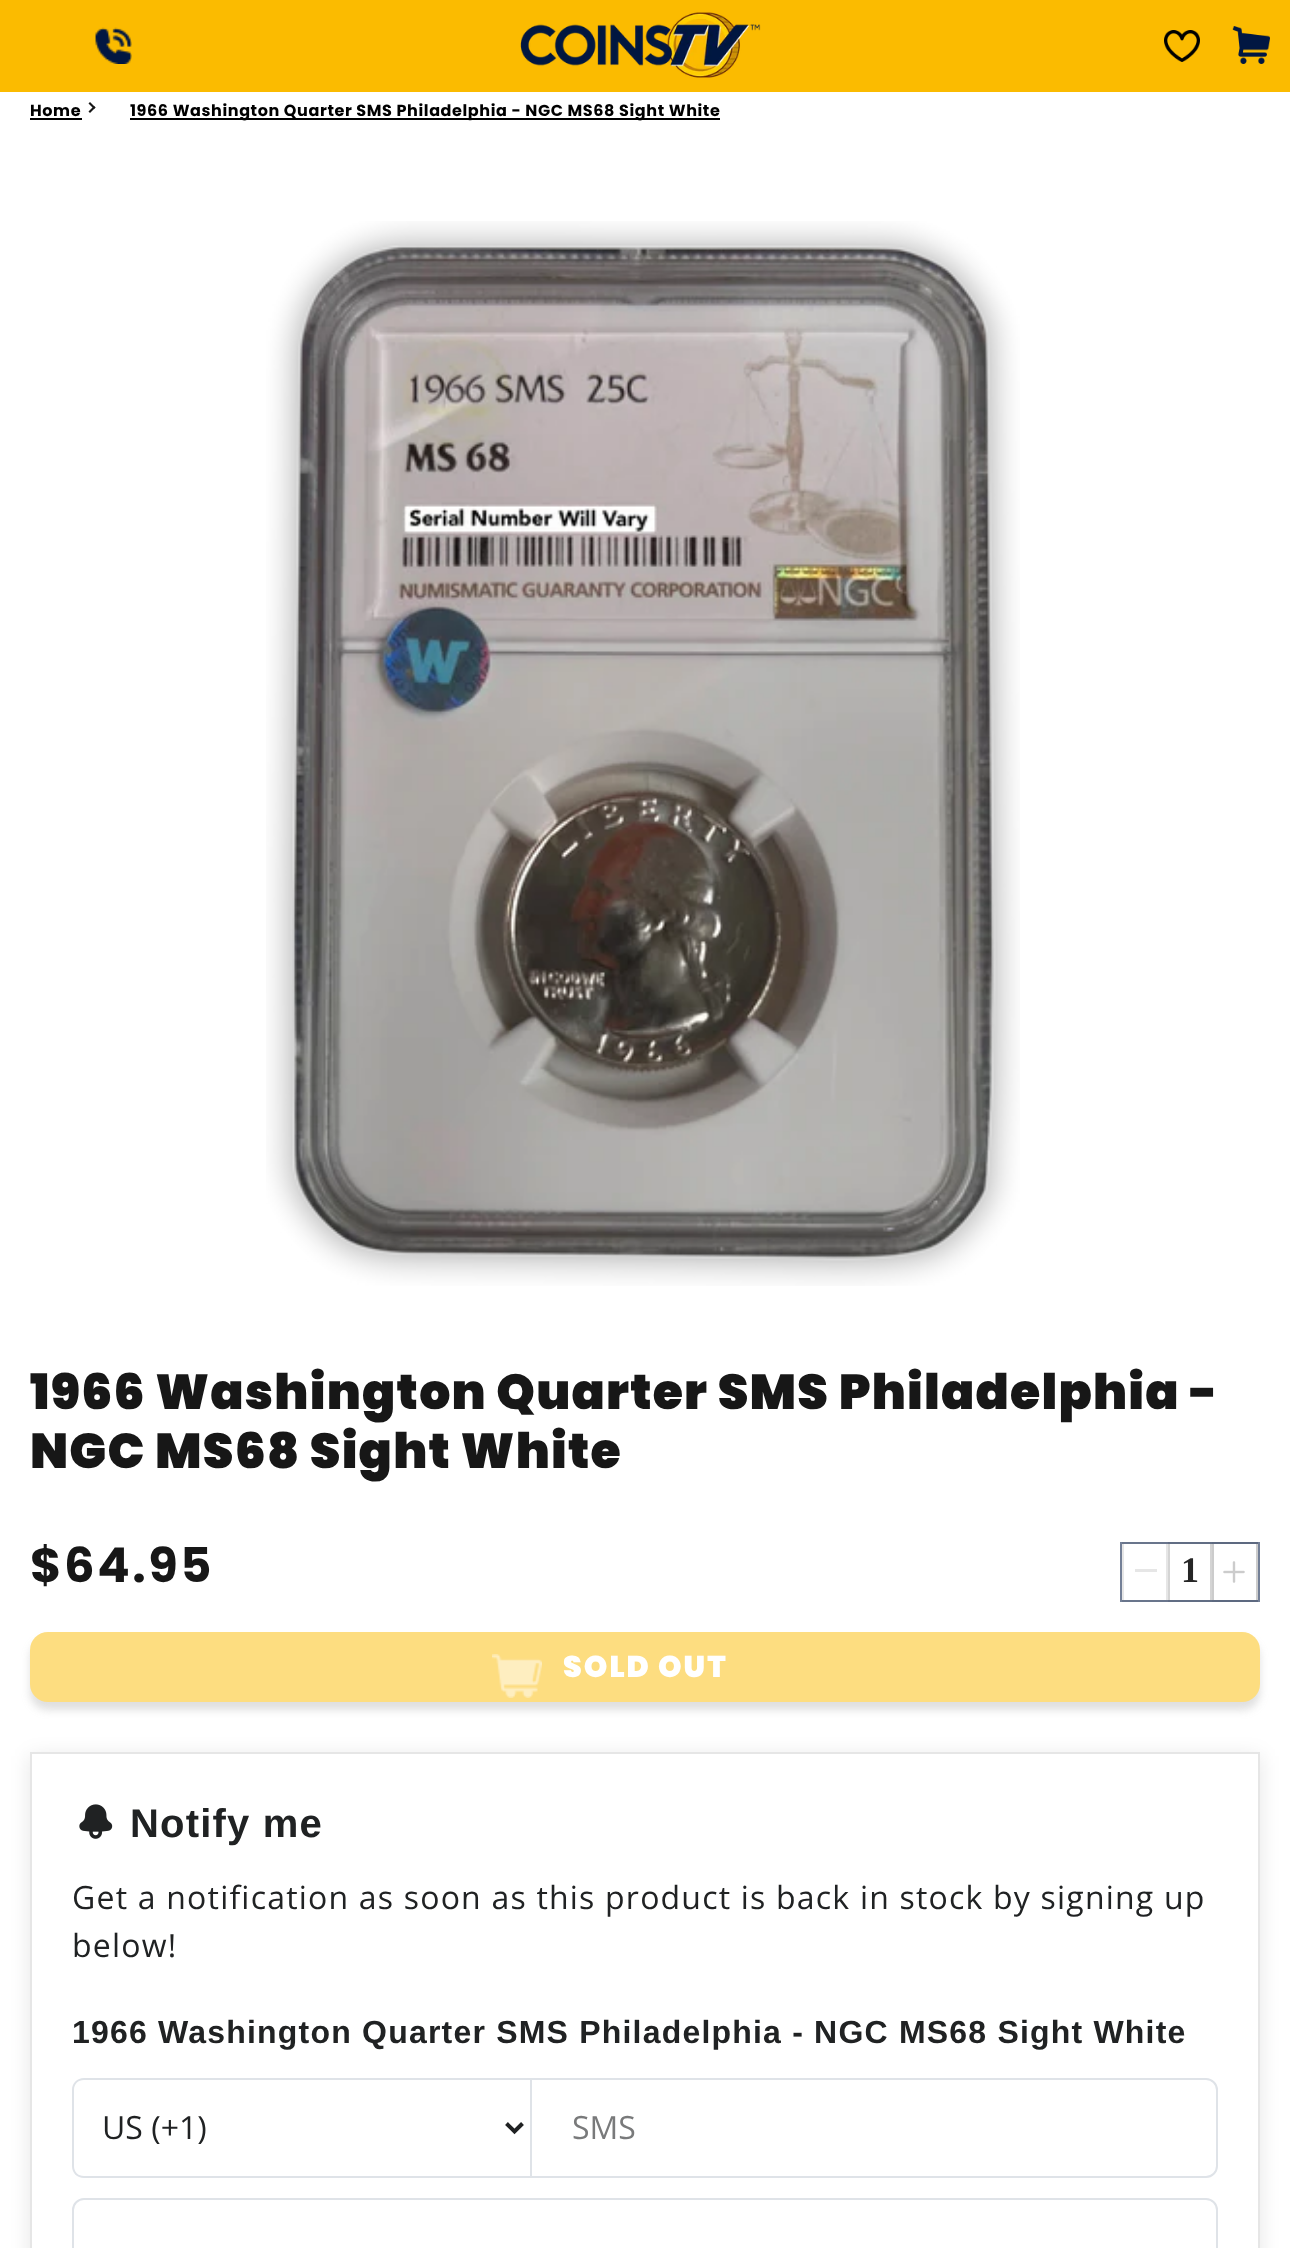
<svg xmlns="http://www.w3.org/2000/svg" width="1290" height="2248">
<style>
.a{font:bold 16px Poppins;letter-spacing:0.6px;fill:#000}
.b{font:900 49px Poppins;letter-spacing:1.2px;fill:#171717}
.c{font:bold 48px Poppins;letter-spacing:2.5px;fill:#171717}
.d{font:bold 36px Liberation Serif;letter-spacing:1px;fill:#262626}
.e{font:900 30px Poppins;letter-spacing:2px;fill:#fff}
.f{font:bold 40px Liberation Sans;letter-spacing:1.2px;fill:#202223}
.g{font:32px Open Sans;letter-spacing:1.2px;fill:#202223}
.h{font:bold 32px Liberation Sans;letter-spacing:1.2px;fill:#202223}
.i{font:32px Open Sans;fill:#202223}
.j{font:32px Open Sans;fill:#797a7b}
</style>
<defs>
<clipPath id="clip1"><path d="M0 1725h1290v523h-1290zm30 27h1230v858h-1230z" clip-rule="evenodd"/></clipPath>
</defs>
<rect width="100%" height="100%" fill="#fff"/>
<path fill="#fbbb00" d="M0 0h1290v92H0z"/>
<image href="1.png" x="95" y="27" width="37" height="37"/>
<image href="2.png" x="520" y="12" width="241" height="66"/>
<image href="3.png" x="1164" y="30" width="36" height="32"/>
<image href="4.png" x="1232" y="26" width="38" height="38"/>
<path fill="#000" d="M30 118h52v2H30z"/>
<path fill="#171717" d="M90 102l5.5 5.5l-1.5 1.5l-5.5-5.5z"/>
<path fill="#171717" d="M94 106l1.5 1.5l-5.5 5.5l-1.5-1.5z"/>
<path fill="#000" d="M130 118h590v2H130z"/>
<image href="5.png" x="266" y="221" width="754" height="1065"/>
<path fill="none" stroke="#e6e6e6" stroke-width="2" d="M1123 1543h44v58H1123z"/>
<path fill="#e6e6e6" d="M1135 1569h22v3H1135z"/>
<path fill="none" stroke="#d4d4d4" stroke-width="2" d="M1169 1543h42v58H1169z"/>
<path fill="none" stroke="#ccc" stroke-width="2" d="M1213 1543h44v58H1213z"/>
<image href="6.png" x="1223" y="1561" width="22" height="22"/>
<path fill="none" stroke="#0117428c" stroke-width="2" d="M1121 1543h138v58H1121z"/>
<rect fill="#80808040" filter="blur(4px)" x="30" y="1640" width="1230" height="70" rx="18"/>
<rect fill="#fddd80" x="30" y="1632" width="1230" height="70" rx="18"/>
<image href="7.png" x="492" y="1654" width="50" height="44"/>
<g clip-path="url(#clip1)">
<path fill="#0000001a" filter="blur(10px)" d="M30 1756h1230v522H30z"/>
</g>
<path fill="none" stroke="#e6e6e6" stroke-width="2" d="M31 1753h1228v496H31z"/>
<image href="8.png" x="79" y="1804" width="34" height="35"/>
<path fill="#dfe3e8" fill-rule="evenodd" d="M84 2078h446v100h-446c-7 0-12-5-12-12v-76c0-7 5-12 12-12zm0 2h446v96h-446c-6 0-10-4-10-10v-76c0-6 4-10 10-10z"/>
<path fill="none" stroke="#202223" stroke-width="4" d="M506.5 2123.5l8 8l8-8"/>
<path fill="none" stroke="#dfe3e8" stroke-width="2" d="M531 2079h675c6 0 11 5 11 11v76c0 6-5 11-11 11h-675z"/>
<rect fill="none" stroke="#dfe3e8" stroke-width="2" x="73" y="2199" width="1144" height="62" rx="11"/>
<text class="a" x="30" y="116">Home</text>
<text class="a" x="130" y="116">1966 Washington Quarter SMS Philadelphia - NGC MS68 Sight White</text>
<text class="b" x="30" y="1409">1966 Washington Quarter SMS Philadelphia -</text>
<text class="b" x="30" y="1468">NGC MS68 Sight White</text>
<text class="c" x="30" y="1582">$64.95</text>
<text class="d" x="1181" y="1582">1</text>
<text class="e" x="563" y="1677">SOLD OUT</text>
<text class="f" x="130" y="1837">Notify me</text>
<text class="g" x="72" y="1909">Get a notification as soon as this product is back in stock by signing up</text>
<text class="g" x="72" y="1957">below!</text>
<text class="h" x="72" y="2043">1966 Washington Quarter SMS Philadelphia - NGC MS68 Sight White</text>
<text class="i" x="102" y="2139">US (+1)</text>
<text class="j" x="572" y="2139">SMS</text>
</svg>
